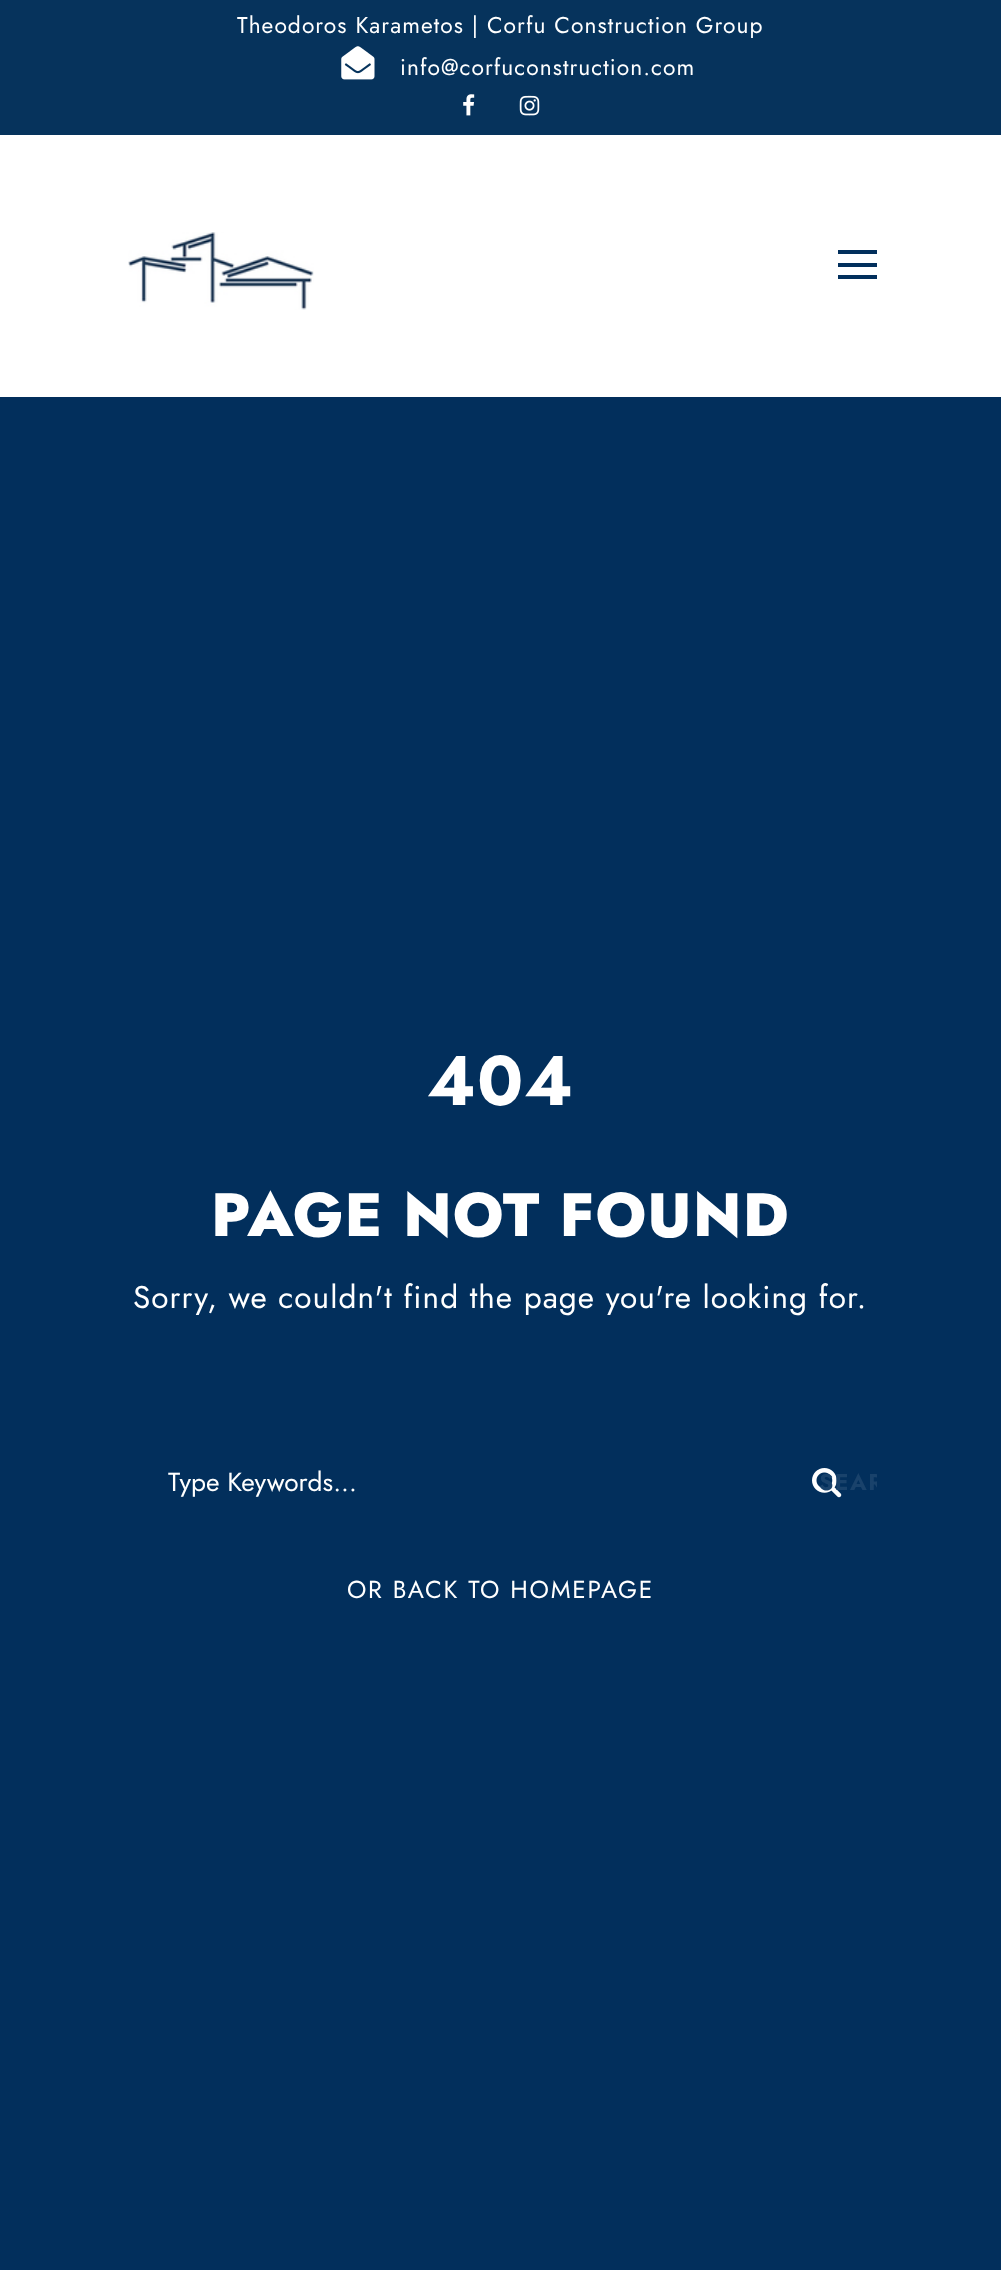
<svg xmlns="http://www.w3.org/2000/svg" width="1001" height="2270">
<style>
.a{font:22.75px Jost;letter-spacing:1.05px;fill:#fff}
.b{font:bold 70px Jost;letter-spacing:1.05px;fill:#fff}
.c{font:800 61.25px Jost;letter-spacing:1.05px;fill:#fff}
.d{font:31.5px Jost;letter-spacing:1.05px;fill:#fff}
.e{font:26.25px Jost;fill:#fff}
.f{font:bold 22.75px Jost;letter-spacing:1.5px;fill:#19426b}
.g{font:24.5px Jost;letter-spacing:1.75px;fill:#fff}
</style>
<defs>
<clipPath id="clip1"><path d="M761 1426h116v112H761z"/></clipPath>
</defs>
<rect width="100%" height="100%" fill="#fff"/>
<path fill="#06335c" d="M0 0h1001v135H0z"/>
<image href="1.png" x="341" y="46" width="34" height="34"/>
<image href="2.png" x="463" y="94" width="12" height="22"/>
<image href="3.png" x="519" y="95" width="21" height="21"/>
<image href="4.png" x="128" y="232" width="186" height="78"/>
<path fill="#022f5c" d="M838 250h39v4H838z"/>
<path fill="#022f5c" d="M838 263h39v4H838z"/>
<path fill="#022f5c" d="M838 275h39v4H838z"/>
<path fill="#022f5c" d="M0 397h1001v1873H0z"/>
<image href="5.png" x="812" y="1468" width="30" height="30"/>
<text class="a" x="237" y="33">Theodoros Karametos | Corfu Construction Group</text>
<text class="a" x="400" y="75">info@corfuconstruction.com</text>
<text class="b" x="427" y="1105">404</text>
<text class="c" x="211" y="1236">PAGE NOT FOUND</text>
<text class="d" x="133" y="1308">Sorry, we couldn't find the page you're looking for.</text>
<text class="e" x="168" y="1491">Type Keywords...</text>
<g clip-path="url(#clip1)">
<text class="f" x="819" y="1490">SEAR</text>
</g>
<text class="g" x="347" y="1598">OR BACK TO HOMEPAGE</text>
</svg>
